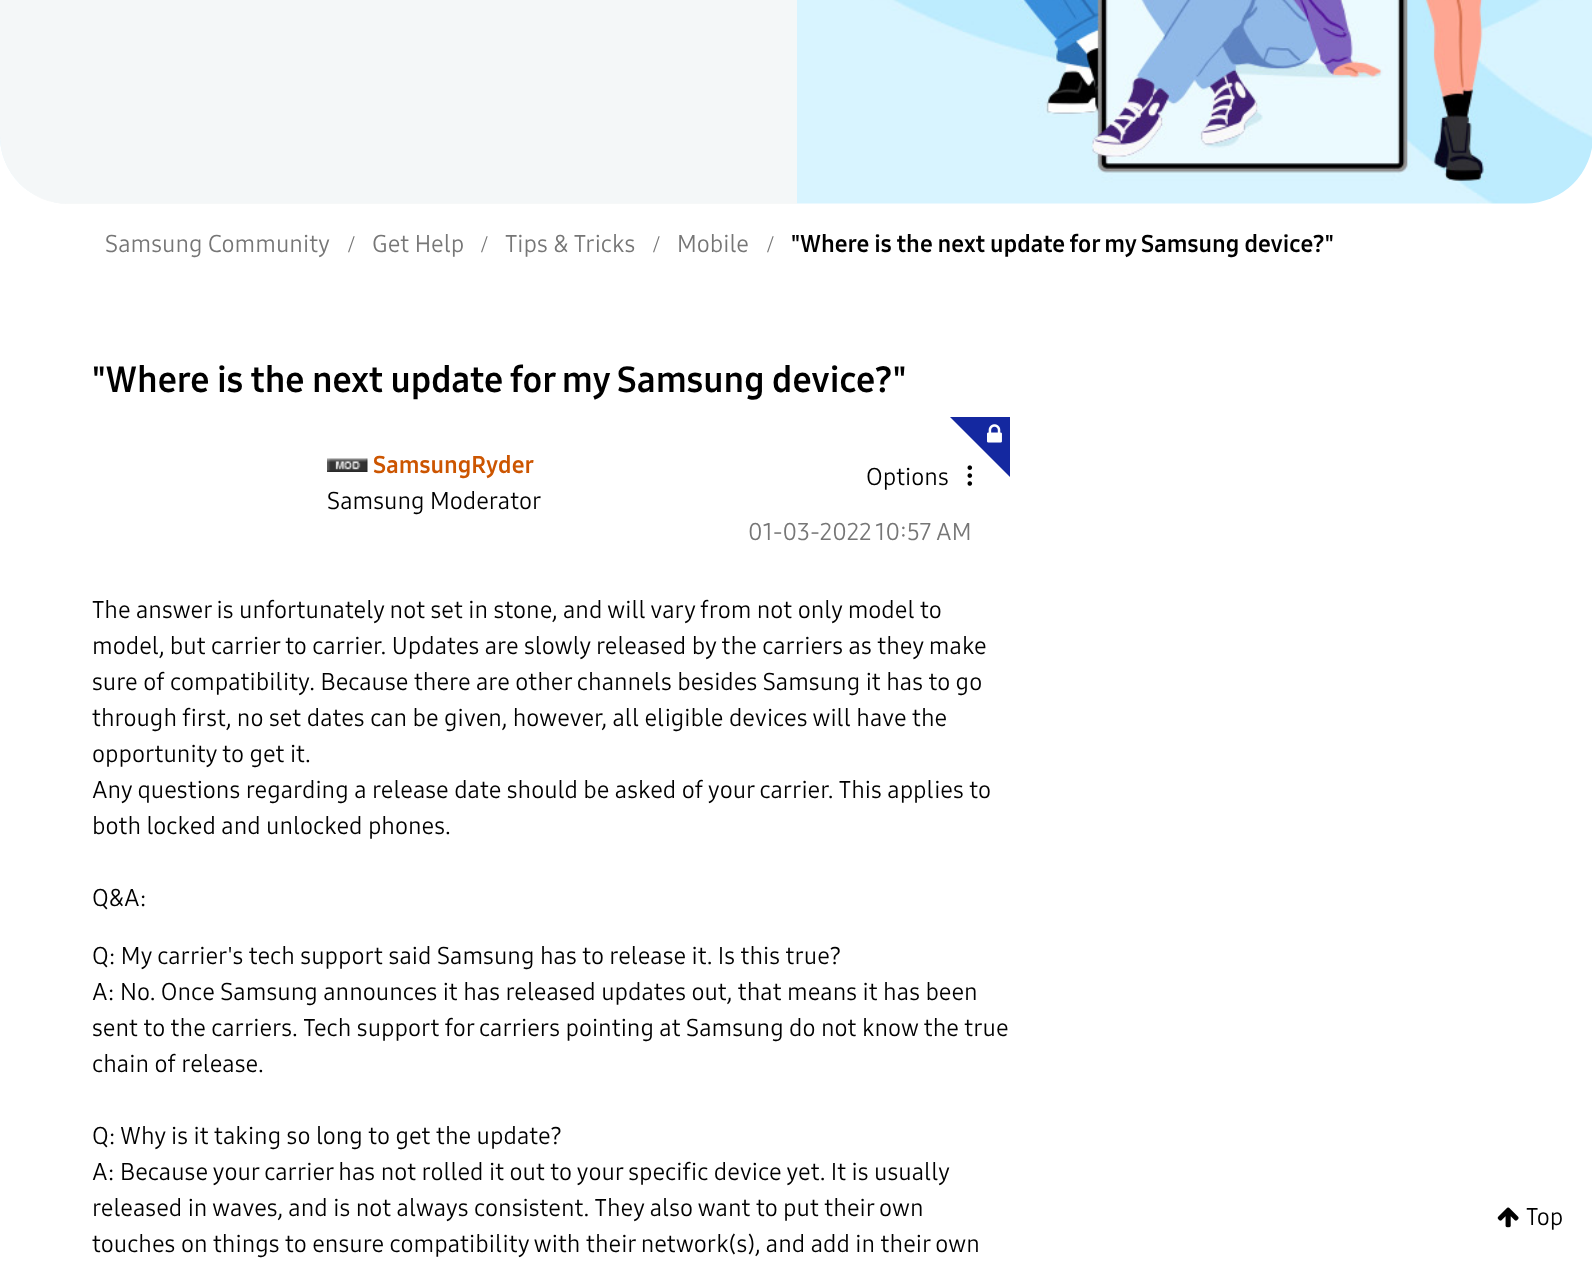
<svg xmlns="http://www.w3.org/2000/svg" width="1592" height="1267">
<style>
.a{font:24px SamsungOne;fill:#767676}
.b{font:24px Liberation Serif;fill:#767676}
.c{font:bold 24px SamsungOne;fill:#000}
.d{font:bold 36px SamsungOne;fill:#000}
.e{font:bold 24px SamsungOne;fill:#c50}
.f{font:24px SamsungOne;fill:#000}
</style>
<rect width="100%" height="100%" fill="#fff"/>
<image href="1.png" x="0" y="0" width="1592" height="204"/>
<path fill="#f7f7f7e6" d="M68-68h729v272h-729c-37.5 0-68-30.5-68-68v-136c0-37.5 30.5-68 68-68z"/>
<path fill="#1428a0" d="M950 417h60v60z"/>
<image href="2.png" x="987" y="424" width="15" height="19"/>
<image href="3.png" x="327" y="458" width="41" height="14"/>
<image href="4.png" x="967" y="465" width="6" height="21"/>
<image href="5.png" x="1497" y="1207" width="22" height="21"/>
<text class="a" x="105" y="252">Samsung Community</text>
<text class="b" x="348" y="252">/</text>
<text class="a" x="372" y="252">Get Help</text>
<text class="b" x="481" y="252">/</text>
<text class="a" x="505" y="252">Tips &amp; Tricks</text>
<text class="b" x="653" y="252">/</text>
<text class="a" x="677" y="252">Mobile</text>
<text class="b" x="767" y="252">/</text>
<text class="c" x="791" y="252">"Where is the next update for my Samsung device?"</text>
<text class="d" x="92" y="392">"Where is the next update for my Samsung device?"</text>
<text class="e" x="373" y="473">SamsungRyder</text>
<text class="f" x="327" y="509">Samsung Moderator</text>
<text class="f" x="866" y="485">Options</text>
<text class="a" x="748" y="540">01-03-2022</text>
<text class="a" x="875" y="540">10:57 AM</text>
<text class="f" x="92" y="618">The answer is unfortunately not set in stone, and will vary from not only model to</text>
<text class="f" x="92" y="654">model, but carrier to carrier. Updates are slowly released by the carriers as they make</text>
<text class="f" x="92" y="690">sure of compatibility. Because there are other channels besides Samsung it has to go</text>
<text class="f" x="92" y="726">through first, no set dates can be given, however, all eligible devices will have the</text>
<text class="f" x="92" y="762">opportunity to get it.</text>
<text class="f" x="92" y="798">Any questions regarding a release date should be asked of your carrier. This applies to</text>
<text class="f" x="92" y="834">both locked and unlocked phones.</text>
<text class="f" x="92" y="906">Q&amp;A:</text>
<text class="f" x="92" y="964">Q: My carrier's tech support said Samsung has to release it. Is this true?</text>
<text class="f" x="92" y="1000">A: No. Once Samsung announces it has released updates out, that means it has been</text>
<text class="f" x="92" y="1036">sent to the carriers. Tech support for carriers pointing at Samsung do not know the true</text>
<text class="f" x="92" y="1072">chain of release.</text>
<text class="f" x="92" y="1144">Q: Why is it taking so long to get the update?</text>
<text class="f" x="92" y="1180">A: Because your carrier has not rolled it out to your specific device yet. It is usually</text>
<text class="f" x="92" y="1216">released in waves, and is not always consistent. They also want to put their own</text>
<text class="f" x="92" y="1252">touches on things to ensure compatibility with their network(s), and add in their own</text>
<text class="f" x="1526" y="1225">Top</text>
</svg>
